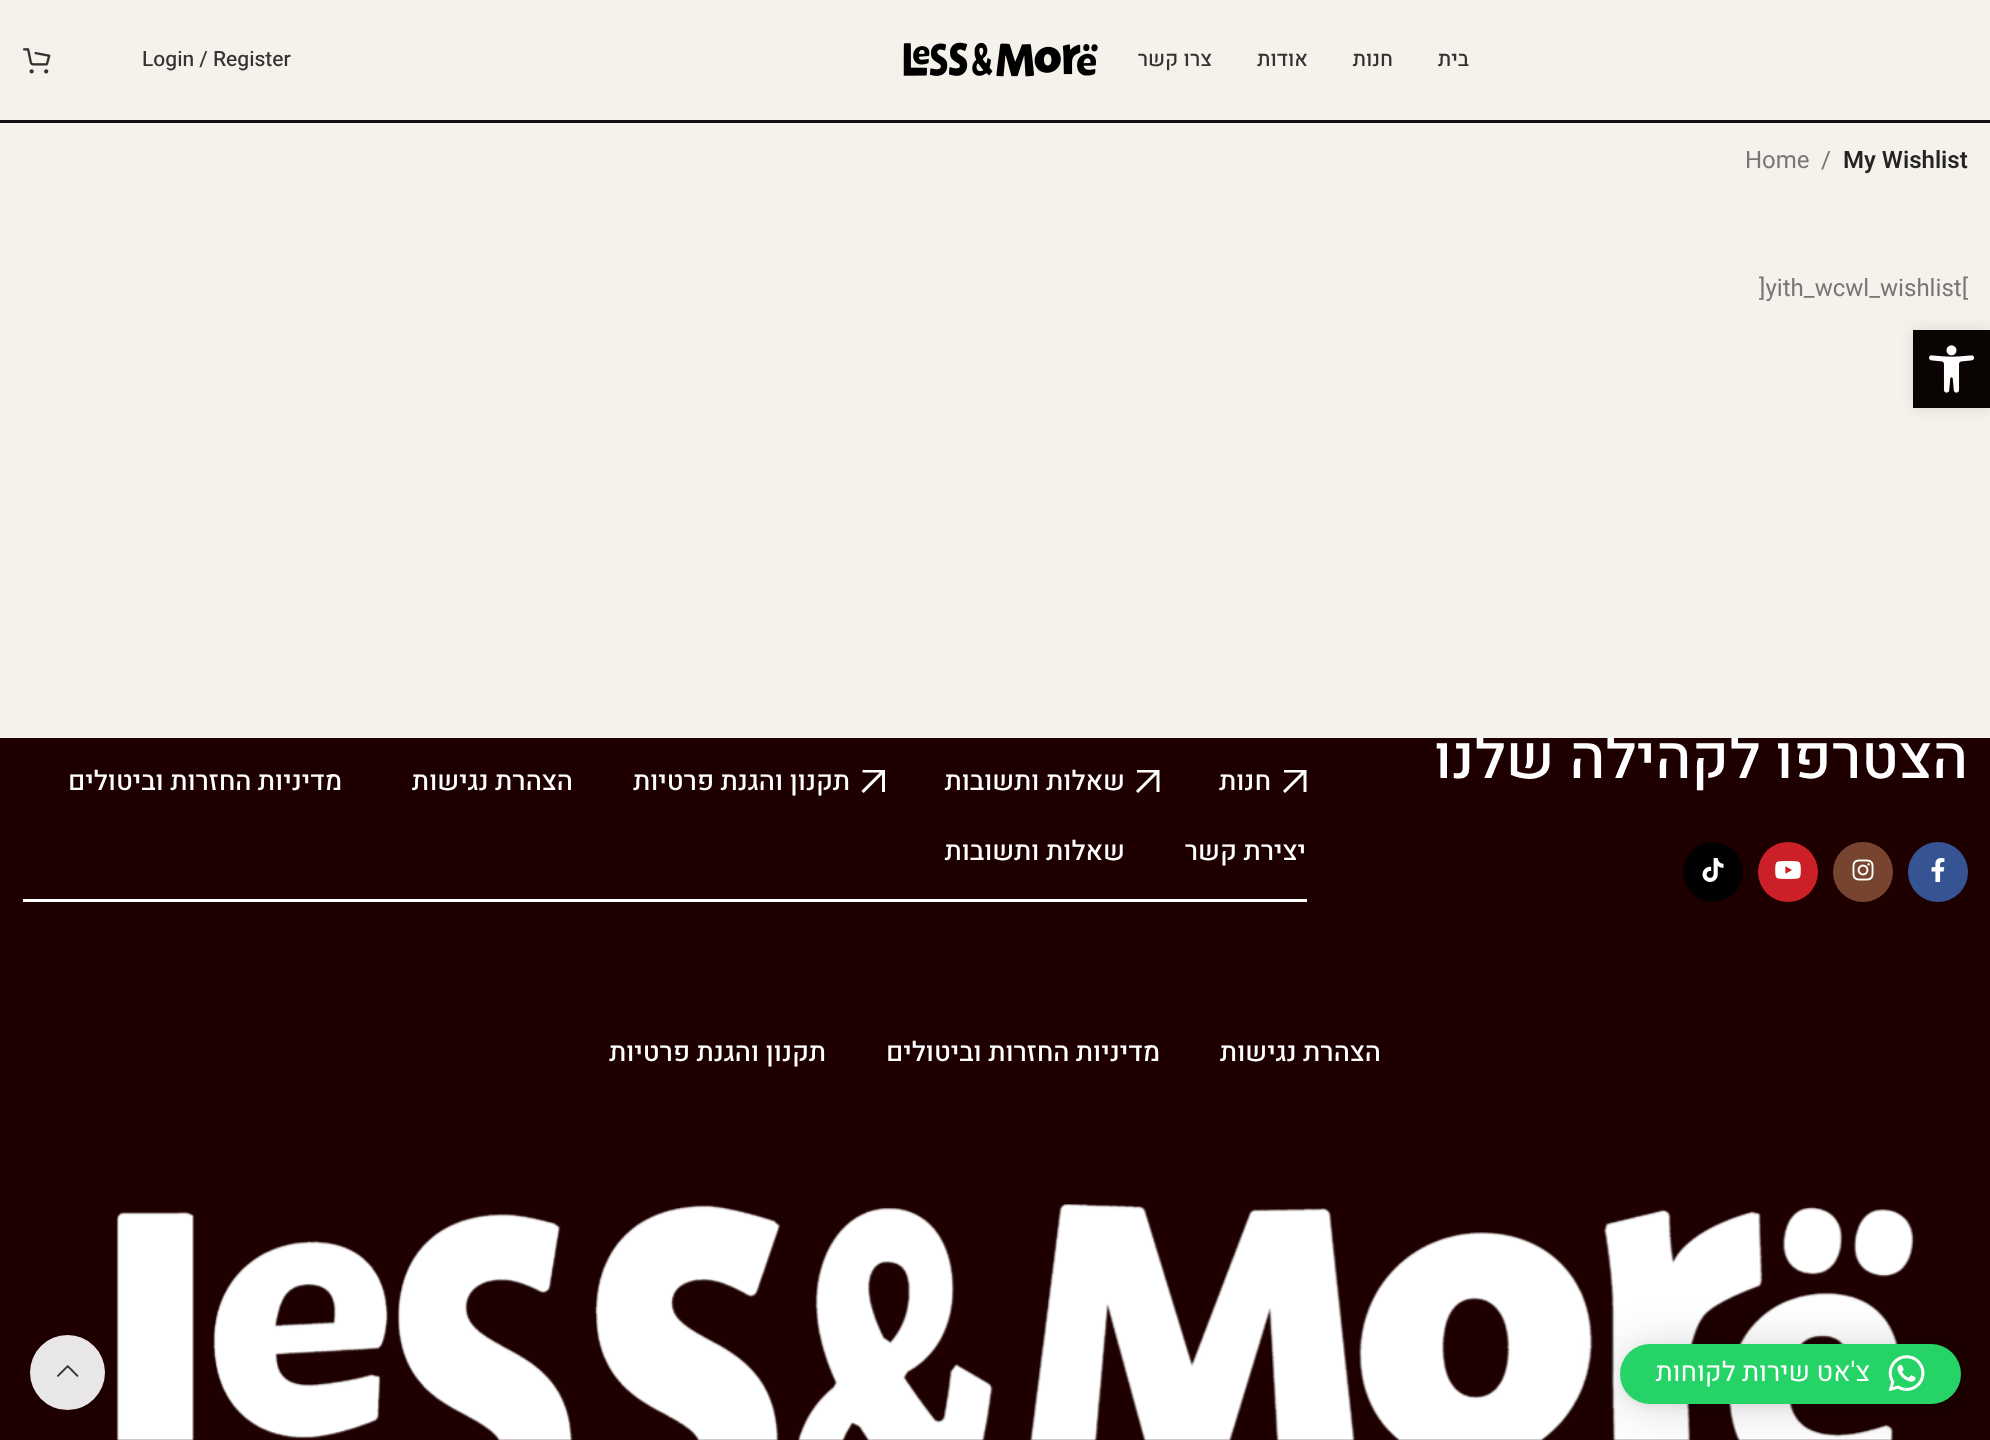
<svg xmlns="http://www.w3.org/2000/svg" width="1990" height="1440">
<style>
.a{font:500 21px Heebo;direction:rtl;fill:#333}
.b{font:500 21px Heebo;fill:#333}
.c{font:500 60px Heebo;direction:rtl;fill:#fff}
.d{font:600 24px Heebo;fill:#242424}
.e{font:24px Heebo;fill:#777}
.f{font:500 27px Heebo;direction:rtl;fill:#fff}
.g{font:27px Heebo;direction:rtl;fill:#fff}
</style>
<rect width="100%" height="100%" fill="#1e0000"/>
<path fill="#f5f1eb" d="M0 0h1990v120H0z"/>
<path fill="#101010" d="M0 120h1990v3H0z"/>
<image href="1.png" x="903" y="42" width="195" height="35"/>
<image href="2.png" x="23" y="48" width="28" height="26"/>
<circle fill="#365493" cx="1938" cy="872" r="30"/>
<image href="3.png" x="1931" y="858" width="14" height="24"/>
<circle fill="#774430" cx="1863" cy="872" r="30"/>
<image href="4.png" x="1852" y="859" width="22" height="22"/>
<circle fill="#cb2027" cx="1788" cy="872" r="30"/>
<image href="5.png" x="1775" y="861" width="26" height="18"/>
<circle fill="#010101" cx="1713" cy="872" r="30"/>
<image href="6.png" x="1702" y="858" width="22" height="24"/>
<image href="7.png" x="1283" y="770" width="24" height="23"/>
<image href="7.png" x="1136" y="770" width="24" height="23"/>
<image href="8.png" x="861" y="770" width="24" height="23"/>
<path fill="#fff" d="M23 899h1284v3H23z"/>
<image href="9.png" x="116" y="1204" width="1799" height="236"/>
<rect fill="#00000029" filter="blur(24px)" x="1620" y="1347" width="341" height="60" rx="30"/>
<rect fill="#0000000f" filter="blur(4.5px)" x="1620" y="1346" width="341" height="60" rx="30"/>
<rect fill="#25d366" x="1620" y="1344" width="341" height="60" rx="30"/>
<image href="11.png" x="1888" y="1355" width="37" height="37"/>
<circle fill="#e8e6e6" cx="67.5" cy="1372.5" r="37.5"/>
<image href="12.png" x="57" y="1365" width="22" height="12"/>
<text class="a" x="1469" y="66">בית</text>
<text class="a" x="1393" y="66">חנות</text>
<text class="a" x="1308" y="66">אודות</text>
<text class="a" x="1212" y="66">צרו קשר</text>
<text class="b" x="142" y="66">Login / Register</text>
<text class="c" x="1968" y="778">הצטרפו לקהילה שלנו</text>
<path fill="#f5f1eb" d="M0 123h1990v615H0z"/>
<text class="d" x="1843" y="168">My Wishlist</text>
<text class="e" x="1821" y="168">/</text>
<text class="e" x="1745" y="168">Home</text>
<text class="e" x="1759" y="296">]yith_wcwl_wishlist[</text>
<text class="f" x="1271" y="790">חנות</text>
<text class="f" x="1125" y="790">שאלות ותשובות</text>
<text class="f" x="850" y="790">תקנון והגנת פרטיות</text>
<text class="f" x="573" y="790">הצהרת נגישות</text>
<text class="f" x="342" y="790">מדיניות החזרות וביטולים</text>
<text class="f" x="1306" y="860">יצירת קשר</text>
<text class="f" x="1125" y="860">שאלות ותשובות</text>
<text class="f" x="1381" y="1061">הצהרת נגישות</text>
<text class="f" x="1160" y="1061">מדיניות החזרות וביטולים</text>
<text class="f" x="826" y="1061">תקנון והגנת פרטיות</text>
<path fill="#0000001a" filter="blur(7.5px)" d="M1913 330h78v78H1913z"/>
<path fill="#0a0403" d="M1913 330h77v78H1913z"/>
<image href="10.png" x="1929" y="345" width="46" height="48"/>
<text class="g" x="1870" y="1381">צ'אט שירות לקוחות</text>
</svg>
